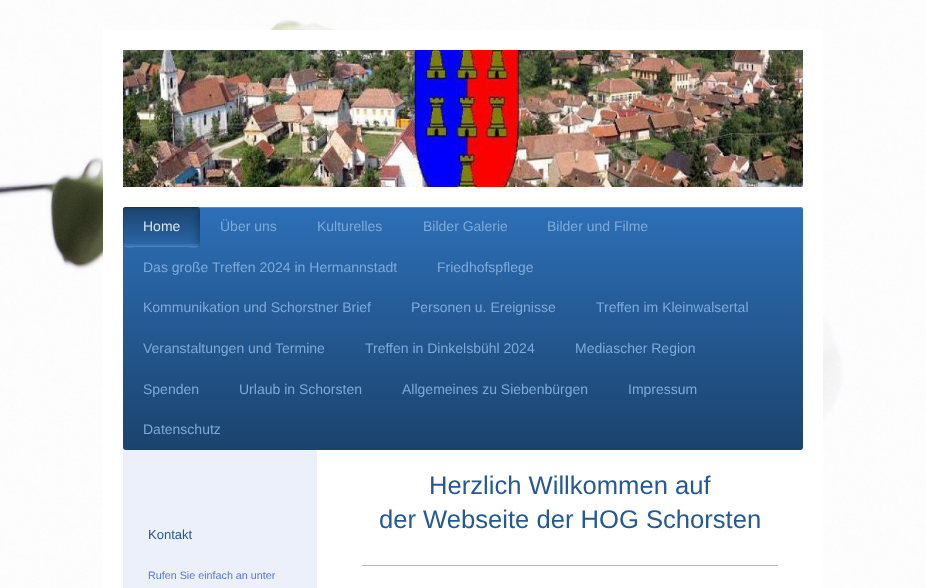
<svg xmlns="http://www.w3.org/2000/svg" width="926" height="588">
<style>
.a{font:14px Liberation Sans;fill:#d9e4f0}
.b{font:14px Liberation Sans;fill:#7daad9}
.c{font:25.6px Liberation Sans;fill:#245992}
.d{font:13px Liberation Sans;fill:#245992}
.e{font:10.75px Liberation Sans;fill:#5478db}
</style>
<defs>
<linearGradient id="g1" gradientUnits="userSpaceOnUse" x1="123" y1="207" x2="123" y2="450"><stop offset="0" stop-color="#2d6fb7"/><stop offset="1" stop-color="#1b436d"/></linearGradient>
<linearGradient id="g2" gradientUnits="userSpaceOnUse" x1="123" y1="247" x2="123" y2="207"><stop offset="0" stop-color="#2a68ab"/><stop offset="1" stop-color="#1b436d"/></linearGradient>
<clipPath id="clip1"><rect x="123" y="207" width="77" height="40" rx="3"/></clipPath>
</defs>
<rect width="100%" height="100%" fill="#fff"/>
<image href="1.png" x="0" y="0" width="926" height="588"/>
<path fill="#fff" d="M103 30h720v558H103z"/>
<image href="2.png" x="123" y="50" width="680" height="137"/>
<rect fill="url(#g1)" x="123" y="207" width="680" height="243" rx="3"/>
<path fill="#23578e" d="M126 208h674c2 0 3 1 3 3v-1c0-2-1-3-3-3h-674c-2 0-3 1-3 3v1c0-2 1-3 3-3z"/>
<path fill="#ffffff4d" d="M126 208h674c2 0 3 1 3 3v-1c0-2-1-3-3-3h-674c-2 0-3 1-3 3v1c0-2 1-3 3-3z"/>
<rect fill="url(#g2)" x="123" y="207" width="77" height="40" rx="3"/>
<path fill="#00000026" d="M127 208h72c0-1-1-1-2-1h-71c-2 0-3 1-3 3v34c0 1 0 2 1 2v-29c0-3-1-9 3-9z"/>
<path fill="#0000000a" d="M126 210h71c2 0 3 1 3 3c0-9-5-6-15-6h-47c-10 0-15-3-15 6c0-2 1-3 3-3z"/>
<path fill="#ffffff14" d="M123 241c0 9 5 6 15 6h47c10 0 15 3 15-6c0 2-1 3-3 3h-71c-2 0-3-1-3-3z"/>
<path fill="#ffffff1a" d="M123 243c0 7 11 4 15 4h47c4 0 15 3 15-4c0 2-1 3-3 3h-71c-2 0-3-1-3-3z"/>
<g clip-path="url(#clip1)">
<rect fill="#0000004d" filter="blur(3.5px)" x="198" y="209" width="16" height="40" rx="8"/>
</g>
<path fill="#ecf0fb" d="M123 450h194v138H123z"/>
<path fill="#bababa" d="M362 565h416v1H362z"/>
<text class="a" x="143" y="231">Home</text>
<text class="b" x="220" y="231">Über uns</text>
<text class="b" x="317" y="231">Kulturelles</text>
<text class="b" x="423" y="231">Bilder Galerie</text>
<text class="b" x="547" y="231">Bilder und Filme</text>
<text class="b" x="143" y="272">Das große Treffen 2024 in Hermannstadt</text>
<text class="b" x="437" y="272">Friedhofspflege</text>
<text class="b" x="143" y="312">Kommunikation und Schorstner Brief</text>
<text class="b" x="411" y="312">Personen u. Ereignisse</text>
<text class="b" x="596" y="312">Treffen im Kleinwalsertal</text>
<text class="b" x="143" y="353">Veranstaltungen und Termine</text>
<text class="b" x="365" y="353">Treffen in Dinkelsbühl 2024</text>
<text class="b" x="575" y="353">Mediascher Region</text>
<text class="b" x="143" y="394">Spenden</text>
<text class="b" x="239" y="394">Urlaub in Schorsten</text>
<text class="b" x="402" y="394">Allgemeines zu Siebenbürgen</text>
<text class="b" x="628" y="394">Impressum</text>
<text class="b" x="143" y="434">Datenschutz</text>
<text class="c" x="429" y="494">Herzlich Willkommen auf</text>
<text class="c" x="379" y="528">der Webseite der HOG Schorsten</text>
<text class="d" x="148" y="539">Kontakt</text>
<text class="e" x="148" y="579">Rufen Sie einfach an unter</text>
</svg>
